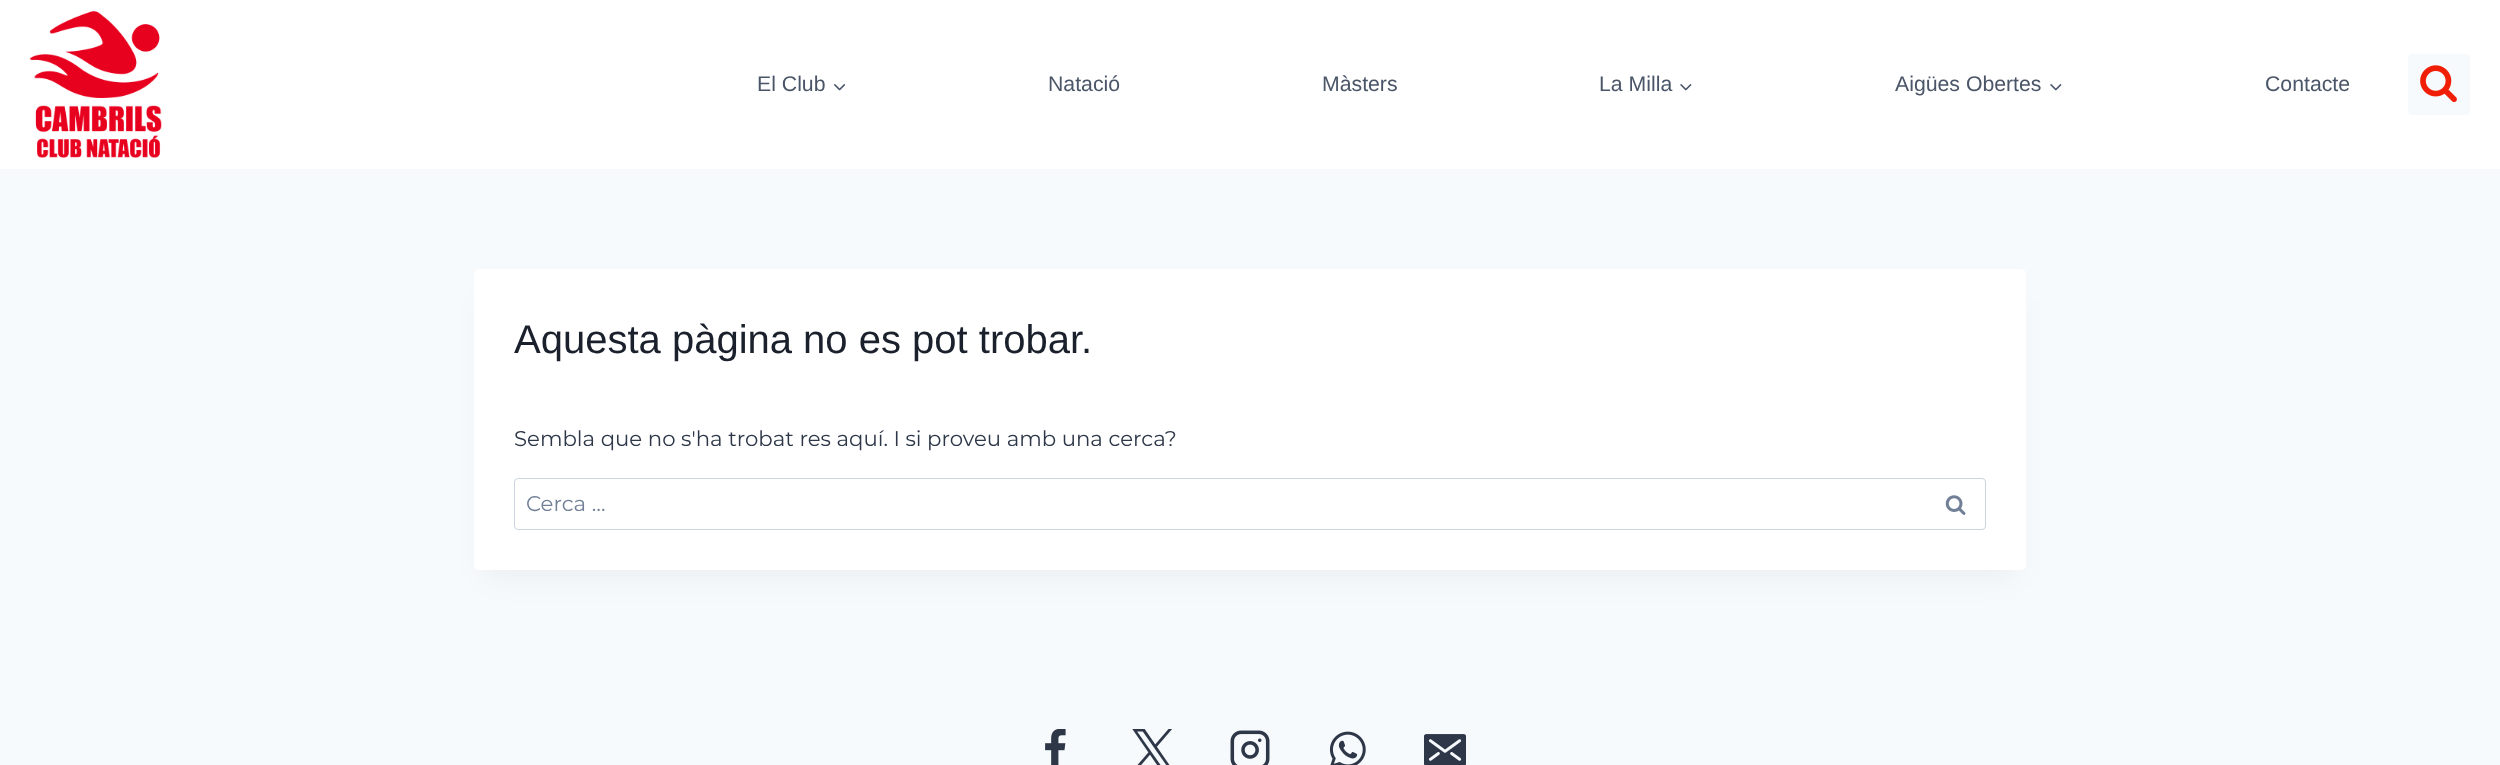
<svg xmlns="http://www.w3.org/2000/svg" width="2500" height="765">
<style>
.a{font:21.25px Liberation Sans;fill:#4a5568}
.b{font:40px Liberation Sans;fill:#1a202c}
.c{font:21.25px Montserrat;fill:#2d3748}
.d{font:21.25px Montserrat;fill:#718096}
</style>
<rect width="100%" height="100%" fill="#f7fafc"/>
<path fill="#fff" d="M0 0h2500v169H0z"/>
<image href="1.png" x="30" y="11" width="132" height="147"/>
<image href="2.png" x="834" y="84" width="12" height="7"/>
<image href="3.png" x="1680" y="84" width="12" height="7"/>
<image href="3.png" x="2050" y="84" width="12" height="7"/>
<rect fill="#f7fafc" x="2408" y="54" width="62" height="61" rx="4"/>
<image href="4.png" x="2420" y="65" width="37" height="38"/>
<path fill="#0000000d" filter="blur(15.5px)" d="M486 300h1528v276H486z"/>
<rect fill="#fff" x="474" y="269" width="1552" height="301" rx="5"/>
<rect fill="none" stroke="#cbd5e0" x="514.5" y="478.5" width="1471" height="51" rx="3.5"/>
<image href="5.png" x="1945" y="495" width="21" height="20"/>
<image href="6.png" x="1045" y="729" width="21" height="36"/>
<image href="7.png" x="1132" y="729" width="40" height="36"/>
<image href="8.png" x="1230" y="730" width="40" height="35"/>
<image href="9.png" x="1329" y="731" width="37" height="34"/>
<image href="10.png" x="1424" y="734" width="42" height="31"/>
<text class="a" x="757" y="91">El Club</text>
<text class="a" x="1048" y="91">Natació</text>
<text class="a" x="1322" y="91">Màsters</text>
<text class="a" x="1599" y="91">La Milla</text>
<text class="a" x="1895" y="91">Aigües Obertes</text>
<text class="a" x="2265" y="91">Contacte</text>
<text class="b" x="514" y="353">Aquesta pàgina no es pot trobar.</text>
<text class="c" x="514" y="446">Sembla que no s'ha trobat res aquí. I si proveu amb una cerca?</text>
<text class="d" x="526" y="511">Cerca …</text>
</svg>
